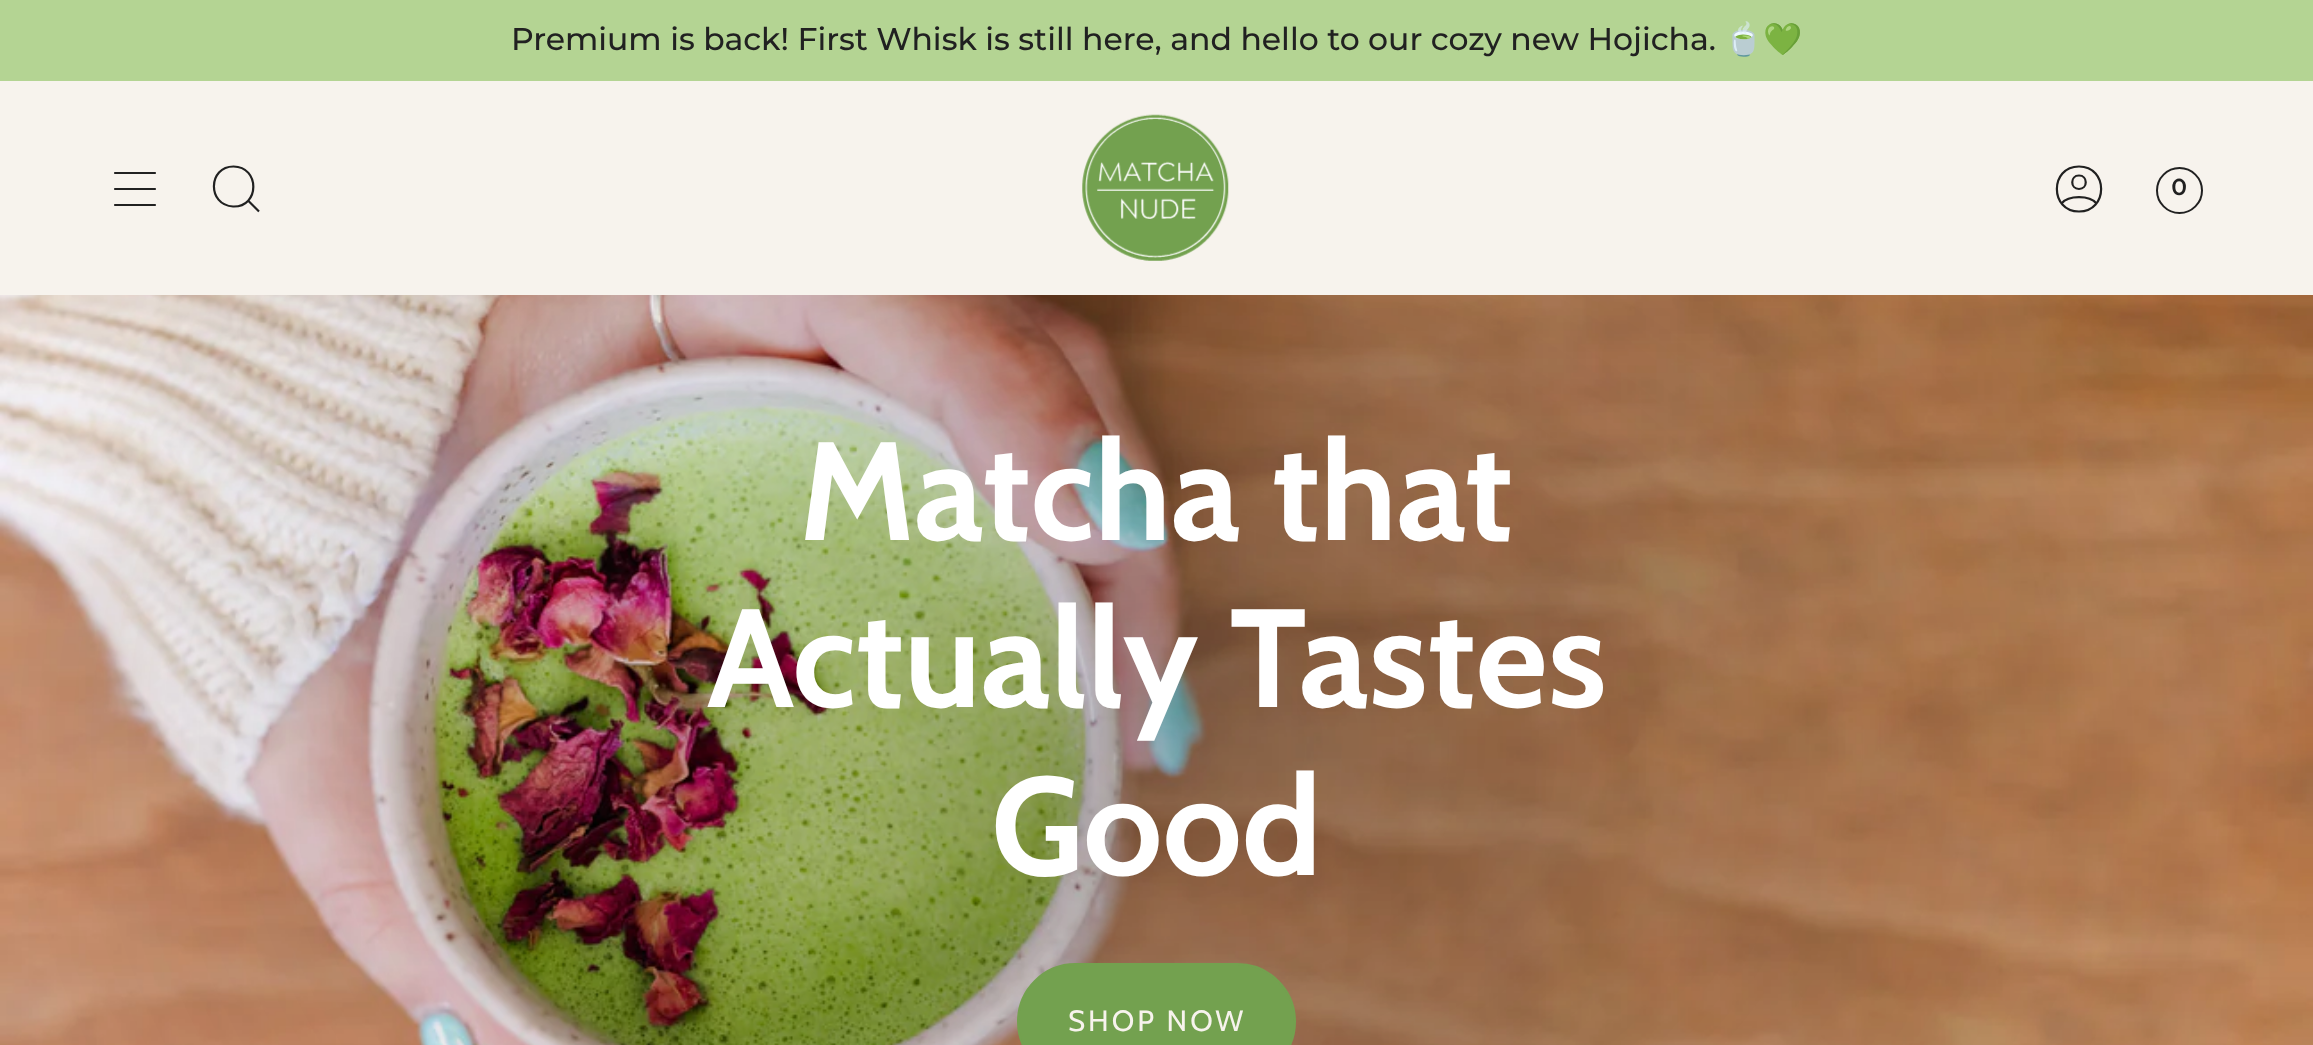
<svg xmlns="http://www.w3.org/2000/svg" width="2313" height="1045">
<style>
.a{font:500 31.5px Montserrat;fill:#212121}
.b{font:31.5px Noto Color Emoji;fill:#212121}
.c{font:bold 23px Cabin;fill:#212121}
.d{font:bold 139.5px Cabin;fill:#fff}
.e{font:29.25px Cabin;letter-spacing:3px;fill:#f7f3ed}
</style>
<rect width="100%" height="100%" fill="#fff"/>
<path fill="#b4d493" d="M0 0h2313v81H0z"/>
<path fill="#f7f3ed" d="M0 81h2313v214H0z"/>
<path fill="none" stroke="#212121" stroke-width="2.2" stroke-linecap="round" stroke-linejoin="round" d="M115 173h40m-40 16h40m-40 16h40"/>
<path fill="none" stroke="#212121" stroke-width="2.2" d="M233.5 166.5c26.5 0 26.5 41-.5 40c-26-1.5-25-40 .5-40zm14.5 34l11 11"/>
<image href="1.png" x="1082" y="114" width="147" height="147"/>
<path fill="none" stroke="#212121" stroke-width="2.2" stroke-linecap="round" stroke-linejoin="round" d="M2079 166.5c-29.5 0-29.5 45 0 45c29.5 0 29.5-45 0-45zm-17.5 37c7-8.5 28-8.5 35 0m-17.5-14.5c9 0 9-13.5 0-13.5c-9 0-9 13.5 0 13.5z"/>
<circle fill="none" stroke="#212121" stroke-width="2" cx="2179.5" cy="190.5" r="22.5"/>
<image href="2.png" x="0" y="295" width="2313" height="750"/>
<rect fill="#73a14f" stroke="#73a14f" stroke-width="2" x="1018" y="964" width="277" height="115" rx="57.5"/>
<text class="a" x="511" y="50">Premium is back! First Whisk is still here, and hello to our cozy new Hojicha.</text>
<text class="b" x="1724" y="50">🍵💚</text>
<text class="c" x="2171" y="195">0</text>
<text class="d" x="799" y="540">Matcha that</text>
<text class="d" x="707" y="707">Actually Tastes</text>
<text class="d" x="991" y="875">Good</text>
<text class="e" x="1068" y="1031">SHOP NOW</text>
</svg>
